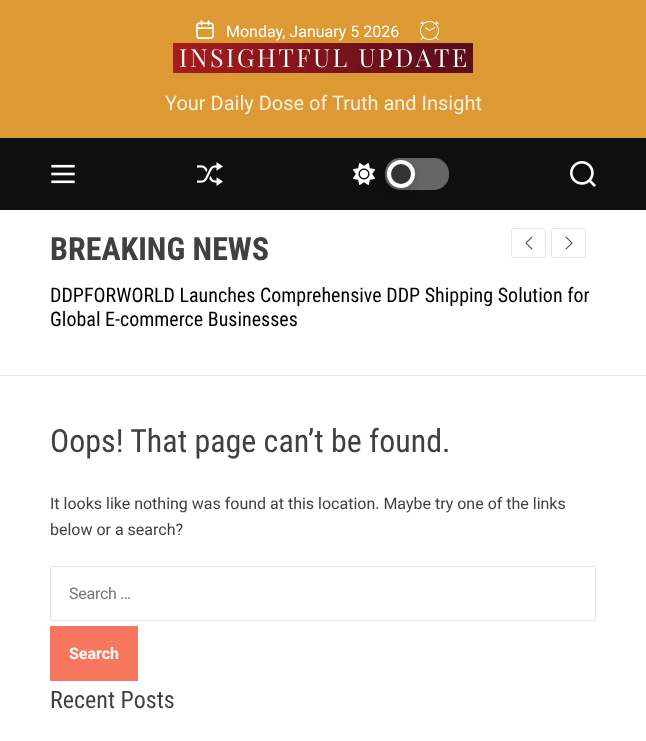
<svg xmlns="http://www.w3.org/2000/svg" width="646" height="741">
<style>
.a{font:16px Roboto;fill:#fff}
.b{font:20px Roboto;fill:#faf0e0}
.c{font:bold 32px Roboto Condensed;fill:#404040}
.d{font:20px Roboto Condensed;fill:#000}
.e{font:32px Roboto Condensed;fill:#404040}
.f{font:16px Roboto;fill:#404040}
.g{font:16px Roboto;letter-spacing:-0.25px;fill:#757575}
.h{font:bold 16px Roboto;fill:#fff}
.i{font:24px Roboto Condensed;fill:#404040}
</style>
<rect width="100%" height="100%" fill="#fff"/>
<path fill="#d93" d="M0 0h646v138H0z"/>
<image href="1.png" x="196" y="20" width="18" height="19"/>
<image href="2.png" x="420" y="21" width="19" height="19"/>
<image href="3.png" x="173" y="43" width="300" height="30"/>
<path fill="#0f0f0f" d="M0 138h646v72H0z"/>
<image href="4.png" x="51" y="164" width="24" height="20"/>
<image href="5.png" x="197" y="162" width="26" height="24"/>
<image href="6.png" x="353" y="163" width="22" height="22"/>
<rect fill="#666" x="385" y="158" width="64" height="32" rx="15"/>
<path fill="#0000000d" d="M400 159c4 0 35-1 40 1c6 3 9 9 9 15c0-20-17-17-32-17c-12 0-31-3-32 14c1-7 7-13 15-13z"/>
<rect fill="#00000029" filter="blur(4px)" x="387" y="164" width="28" height="28" rx="14"/>
<circle fill="#333" stroke="#fff" stroke-width="4" cx="401" cy="174" r="12"/>
<image href="7.png" x="570" y="161" width="26" height="26"/>
<path fill="#e6e6e6" d="M0 375h646v1H0z"/>
<rect fill="none" stroke="#e6e6e6" x="511.5" y="228.5" width="34" height="29" rx="2.5"/>
<image href="8.png" x="525" y="236" width="8" height="14"/>
<rect fill="none" stroke="#e6e6e6" x="551.5" y="228.5" width="34" height="29" rx="2.5"/>
<image href="9.png" x="565" y="236" width="8" height="14"/>
<path fill="none" stroke="#e6e6e6" d="M50.5 566.5h545v54H50.5z"/>
<path fill="#f7775e" d="M50 626h88v55H50z"/>
<text class="a" x="226" y="37">Monday, January 5 2026</text>
<text class="b" x="165" y="110">Your Daily Dose of Truth and Insight</text>
<text class="c" x="50" y="260">BREAKING NEWS</text>
<text class="d" x="50" y="302">DDPFORWORLD Launches Comprehensive DDP Shipping Solution for</text>
<text class="d" x="50" y="326">Global E-commerce Businesses</text>
<text class="e" x="50" y="452">Oops! That page can’t be found.</text>
<text class="f" x="50" y="509">It looks like nothing was found at this location. Maybe try one of the links</text>
<text class="f" x="50" y="535">below or a search?</text>
<text class="g" x="69" y="599">Search …</text>
<text class="h" x="69" y="659">Search</text>
<text class="i" x="50" y="708">Recent Posts</text>
</svg>
